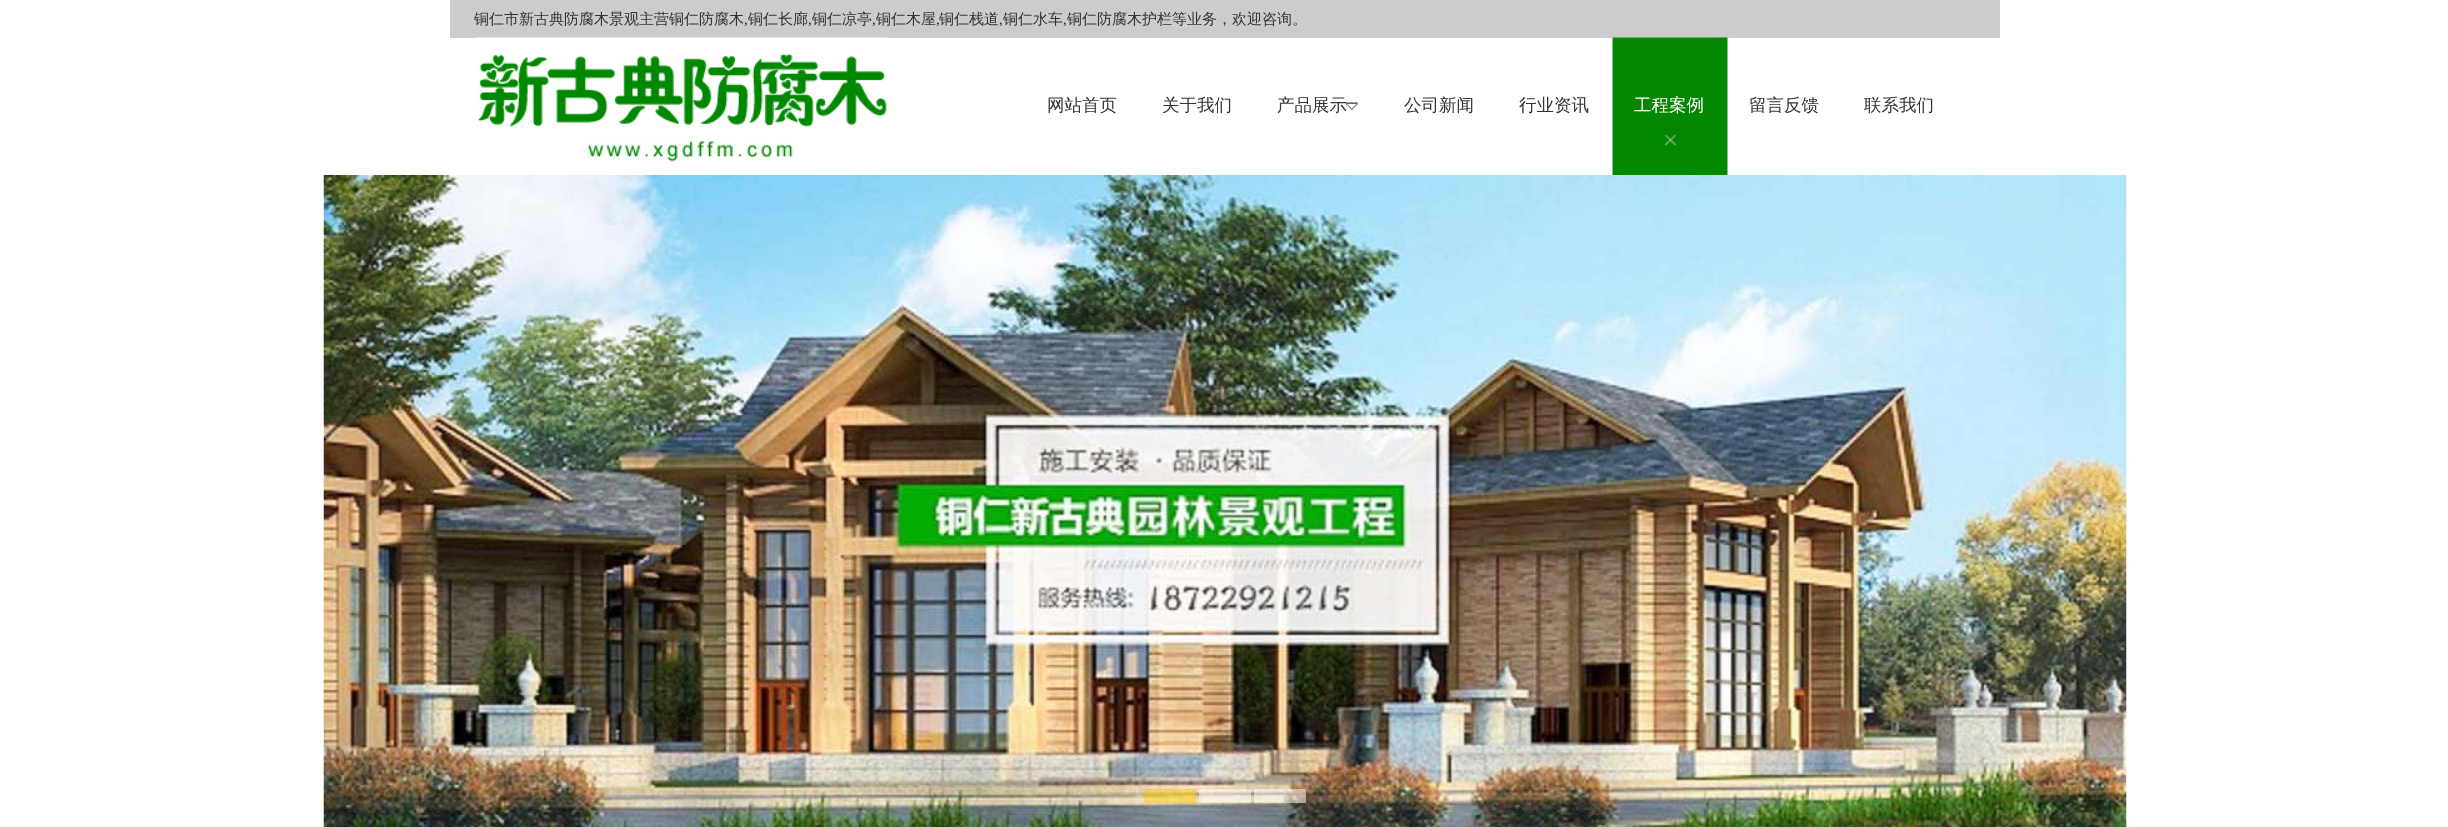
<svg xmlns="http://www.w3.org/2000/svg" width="2448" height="827">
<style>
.a{font:500 15px WenQuanYi Zen Hei;fill:#333}
.b{font:15px Liberation Serif;fill:#333}
.c{font:500 17.5px WenQuanYi Zen Hei;fill:#333}
.d{font:500 17.5px WenQuanYi Zen Hei;fill:#fff}
</style>
<rect width="100%" height="100%" fill="#fff"/>
<path fill="#ccc" d="M450 0h1550v38H450z"/>
<image href="1.png" x="475" y="37" width="413" height="125"/>
<image href="3.png" x="1612" y="37" width="116" height="138"/>
<image href="4.png" x="323" y="175" width="1804" height="652"/>
<path fill="#ffcc0080" d="M1144 789h52v14H1144z"/>
<path fill="#ffffff80" d="M1199 789h52v14H1199z"/>
<path fill="#ffffff80" d="M1254 789h52v14H1254z"/>
<text class="a" x="474" y="24">铜仁市新古典防腐木景观主营铜仁防腐木</text>
<text class="b" x="744" y="24">,</text>
<text class="a" x="748" y="24">铜仁长廊</text>
<text class="b" x="808" y="24">,</text>
<text class="a" x="812" y="24">铜仁凉亭</text>
<text class="b" x="872" y="24">,</text>
<text class="a" x="876" y="24">铜仁木屋</text>
<text class="b" x="936" y="24">,</text>
<text class="a" x="939" y="24">铜仁栈道</text>
<text class="b" x="999" y="24">,</text>
<text class="a" x="1003" y="24">铜仁水车</text>
<text class="b" x="1063" y="24">,</text>
<text class="a" x="1067" y="24">铜仁防腐木护栏等业务，欢迎咨询。</text>
<text class="c" x="1047" y="111">网站首页</text>
<text class="c" x="1162" y="111">关于我们</text>
<text class="c" x="1277" y="111">产品展示</text>
<image href="2.png" x="1346" y="102" width="12" height="9"/>
<text class="c" x="1404" y="111">公司新闻</text>
<text class="c" x="1519" y="111">行业资讯</text>
<text class="d" x="1634" y="111">工程案例</text>
<text class="c" x="1749" y="111">留言反馈</text>
<text class="c" x="1864" y="111">联系我们</text>
</svg>
